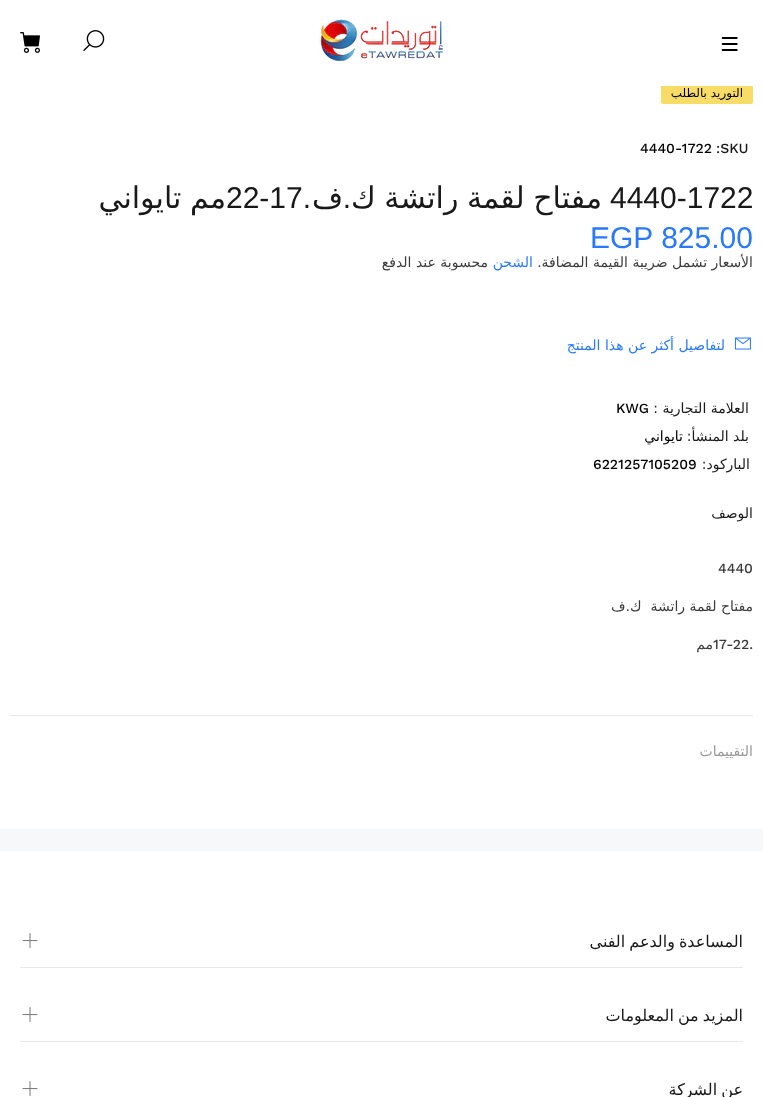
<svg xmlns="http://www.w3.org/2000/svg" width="763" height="1097">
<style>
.a{font:12px DejaVu Sans;direction:rtl;fill:#000}
.b{font:500 14px Work Sans;fill:#191919}
.c{font:500 14px Work Sans;fill:#000}
.d{font:30px Liberation Sans;fill:#191919}
.e{font:30px DejaVu Sans;direction:rtl;fill:#191919}
.f{font:30px Liberation Sans;direction:rtl;fill:#191919}
.g{font:30px Liberation Sans;fill:#2879fe}
.h{font:14px DejaVu Sans;direction:rtl;fill:#3c3b3b}
.i{font:14px DejaVu Sans;direction:rtl;fill:#2879fe}
.j{font:14px DejaVu Sans;direction:rtl;fill:#191919}
.k{font:14px DejaVu Sans;direction:rtl;fill:#000}
.l{font:500 14px Work Sans;fill:#3c3b3b}
.m{font:14px DejaVu Sans;direction:rtl;fill:#999}
.n{font:16px DejaVu Sans;direction:rtl;fill:#191919}
</style>
<rect width="100%" height="100%" fill="#fff"/>
<rect fill="#f8dc68" x="661" y="81" width="92" height="23" rx="2"/>
<path fill="#fff" d="M661 81h92v5H661z"/>
<image href="1.png" x="721" y="37" width="17" height="14"/>
<image href="2.png" x="320" y="19" width="123" height="42"/>
<image href="3.png" x="83" y="30" width="22" height="21"/>
<image href="4.png" x="20" y="32" width="20" height="21"/>
<image href="5.png" x="734" y="337" width="17" height="13"/>
<path fill="#e9e7e7" d="M10 715h743v1H10z"/>
<path fill="#f7f8fa" d="M0 829h763v22H0z"/>
<path fill="#e9e7e7" d="M20 967h723v1H20z"/>
<image href="6.png" x="22" y="933" width="16" height="15"/>
<path fill="#e9e7e7" d="M20 1041h723v1H20z"/>
<image href="6.png" x="22" y="1007" width="16" height="15"/>
<image href="6.png" x="22" y="1081" width="16" height="15"/>
<text class="a" x="743" y="97">التوريد بالطلب</text>
<text class="b" x="716" y="153">:SKU</text>
<text class="c" x="640" y="153">4440-1722</text>
<text class="d" x="610" y="208">4440-1722</text>
<text class="e" x="602" y="208" word-spacing="-1">مفتاح لقمة راتشة ك</text>
<text class="f" x="351" y="208">.</text>
<text class="e" x="343" y="208">ف</text>
<text class="f" x="311" y="208">.</text>
<text class="d" x="226" y="208">22-17</text>
<text class="e" x="226" y="208" word-spacing="-1">مم تايواني</text>
<text class="g" x="590" y="248">EGP 825.00</text>
<text class="h" x="753" y="267">الأسعار تشمل ضريبة القيمة المضافة.</text>
<text class="i" x="533" y="267">الشحن</text>
<text class="h" x="488" y="267">محسوبة عند الدفع</text>
<text class="i" x="725" y="350">لتفاصيل أكثر عن هذا المنتج</text>
<text class="j" x="749" y="413">العلامة التجارية :</text>
<text class="c" x="616" y="413">KWG</text>
<text class="j" x="749" y="441">بلد المنشأ:</text>
<text class="k" x="683" y="441">تايواني</text>
<text class="j" x="750" y="469">الباركود:</text>
<text class="c" x="593" y="469">6221257105209</text>
<text class="j" x="753" y="518">الوصف</text>
<text class="l" x="718" y="573">4440</text>
<text class="h" xml:space="preserve" x="753" y="611">مفتاح لقمة راتشة  ك.ف</text>
<text class="l" x="713" y="649">17-22.</text>
<text class="h" x="713" y="649">مم</text>
<text class="m" x="753" y="756">التقييمات</text>
<text class="n" x="743" y="947" word-spacing="-1">المساعدة والدعم الفنى</text>
<text class="n" x="743" y="1021" word-spacing="-1">المزيد من المعلومات</text>
<text class="n" x="743" y="1095" word-spacing="-1">عن الشركة</text>
</svg>
